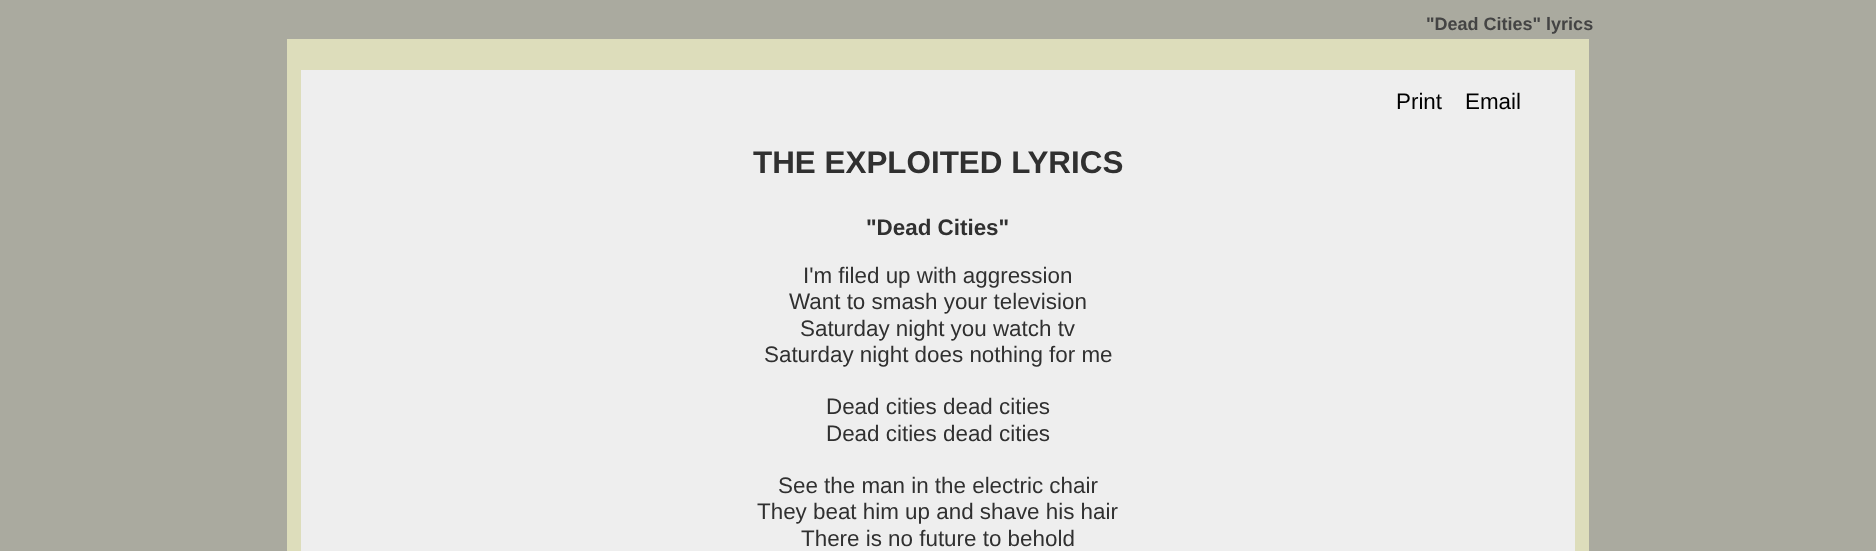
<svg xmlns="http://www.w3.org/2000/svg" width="1876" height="551">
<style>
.a{font:bold 18px Liberation Sans;fill:#444}
.b{font:22.4px Liberation Sans;fill:#000}
.c{font:bold 31.4px Liberation Sans;fill:#303030}
.d{font:bold 22.4px Liberation Sans;fill:#303030}
.e{font:22.4px Liberation Sans;fill:#303030}
</style>
<rect width="100%" height="100%" fill="#aaaa9f"/>
<path fill="#ddb" d="M287 39h1302v512H287z"/>
<path fill="#eee" d="M301 70h1274v481H301z"/>
<text class="a" x="1426" y="30">"Dead Cities" lyrics</text>
<text class="b" x="1396" y="109">Print</text>
<text class="b" x="1465" y="109">Email</text>
<text class="c" x="753" y="173">THE EXPLOITED LYRICS</text>
<text class="d" x="866" y="235">"Dead Cities"</text>
<text class="e" x="803" y="283">I'm filed up with aggression</text>
<text class="e" x="789" y="309">Want to smash your television</text>
<text class="e" x="800" y="336">Saturday night you watch tv</text>
<text class="e" x="764" y="362">Saturday night does nothing for me</text>
<text class="e" x="826" y="414">Dead cities dead cities</text>
<text class="e" x="826" y="441">Dead cities dead cities</text>
<text class="e" x="778" y="493">See the man in the electric chair</text>
<text class="e" x="757" y="519">They beat him up and shave his hair</text>
<text class="e" x="801" y="546">There is no future to behold</text>
</svg>
